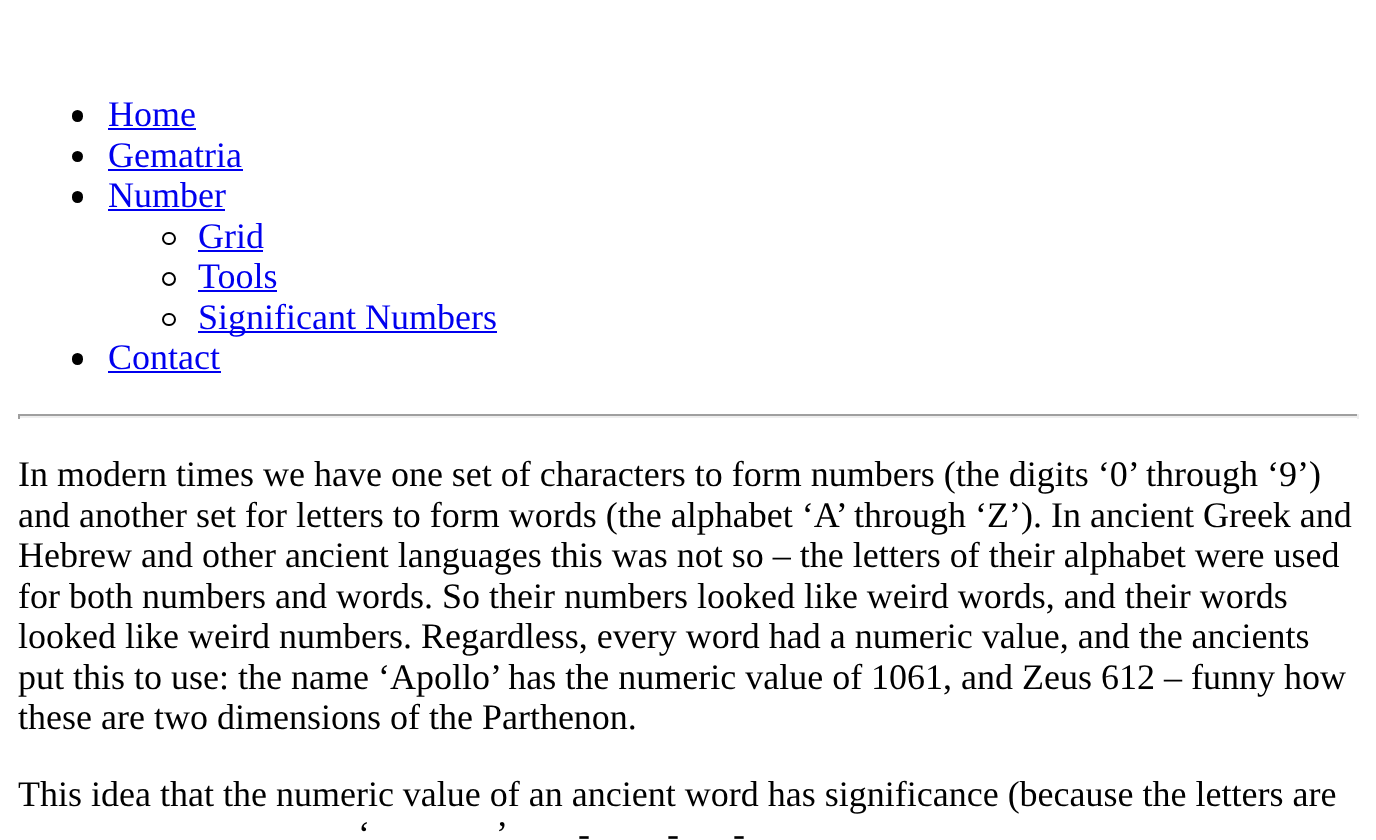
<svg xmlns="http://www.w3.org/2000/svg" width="1376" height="840">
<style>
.a{font:36px Liberation Serif;fill:#00e}
.b{font:36px Liberation Serif;fill:#000}
</style>
<rect width="100%" height="100%" fill="#fff"/>
<rect fill="#000" x="72" y="110" width="11" height="12" rx="5.5"/>
<path fill="#00e" d="M108 128h88v2H108z"/>
<circle fill="#000" cx="77.5" cy="156.5" r="5.5"/>
<path fill="#00e" d="M108 169h135v2H108z"/>
<rect fill="#000" x="72" y="191" width="11" height="12" rx="5.5"/>
<path fill="#00e" d="M108 209h117v2H108z"/>
<rect fill="none" stroke="#000" stroke-width="2" x="163" y="233" width="12" height="11" rx="5.5"/>
<path fill="#00e" d="M198 250h65v2H198z"/>
<circle fill="none" stroke="#000" stroke-width="2" cx="169" cy="279" r="6"/>
<path fill="#00e" d="M198 290h79v2H198z"/>
<rect fill="none" stroke="#000" stroke-width="2" x="163" y="314" width="12" height="11" rx="5.5"/>
<path fill="#00e" d="M198 331h299v2H198z"/>
<rect fill="#000" x="72" y="353" width="11" height="12" rx="5.5"/>
<path fill="#00e" d="M108 371h113v2H108z"/>
<path fill="#9f9f9f" d="M18 414h1341v2H18z"/>
<path fill="#eee" d="M1357 414h2v5H1357z"/>
<path fill="#eee" d="M18 416h1341v2H18z"/>
<path fill="#9f9f9f" d="M18 414h2v5H18z"/>
<text class="a" x="108" y="126">Home</text>
<text class="a" x="108" y="167">Gematria</text>
<text class="a" x="108" y="207">Number</text>
<text class="a" x="198" y="248">Grid</text>
<text class="a" x="198" y="288">Tools</text>
<text class="a" x="198" y="329">Significant Numbers</text>
<text class="a" x="108" y="369">Contact</text>
<text class="b" x="18" y="486">In modern times we have one set of characters to form numbers (the digits ‘0’ through ‘9’)</text>
<text class="b" x="18" y="527">and another set for letters to form words (the alphabet ‘A’ through ‘Z’). In ancient Greek and</text>
<text class="b" x="18" y="567">Hebrew and other ancient languages this was not so – the letters of their alphabet were used</text>
<text class="b" x="18" y="608">for both numbers and words. So their numbers looked like weird words, and their words</text>
<text class="b" x="18" y="648">looked like weird numbers. Regardless, every word had a numeric value, and the ancients</text>
<text class="b" x="18" y="689">put this to use: the name ‘Apollo’ has the numeric value of 1061, and Zeus 612 – funny how</text>
<text class="b" x="18" y="729">these are two dimensions of the Parthenon.</text>
<text class="b" x="18" y="806">This idea that the numeric value of an ancient word has significance (because the letters are</text>
<text class="b" x="358" y="846">‘</text>
<text class="b" x="496" y="846">’</text>
<text class="b" x="578" y="846">-</text>
<text class="b" x="667" y="846">-</text>
<text class="b" x="733" y="846">-</text>
</svg>
